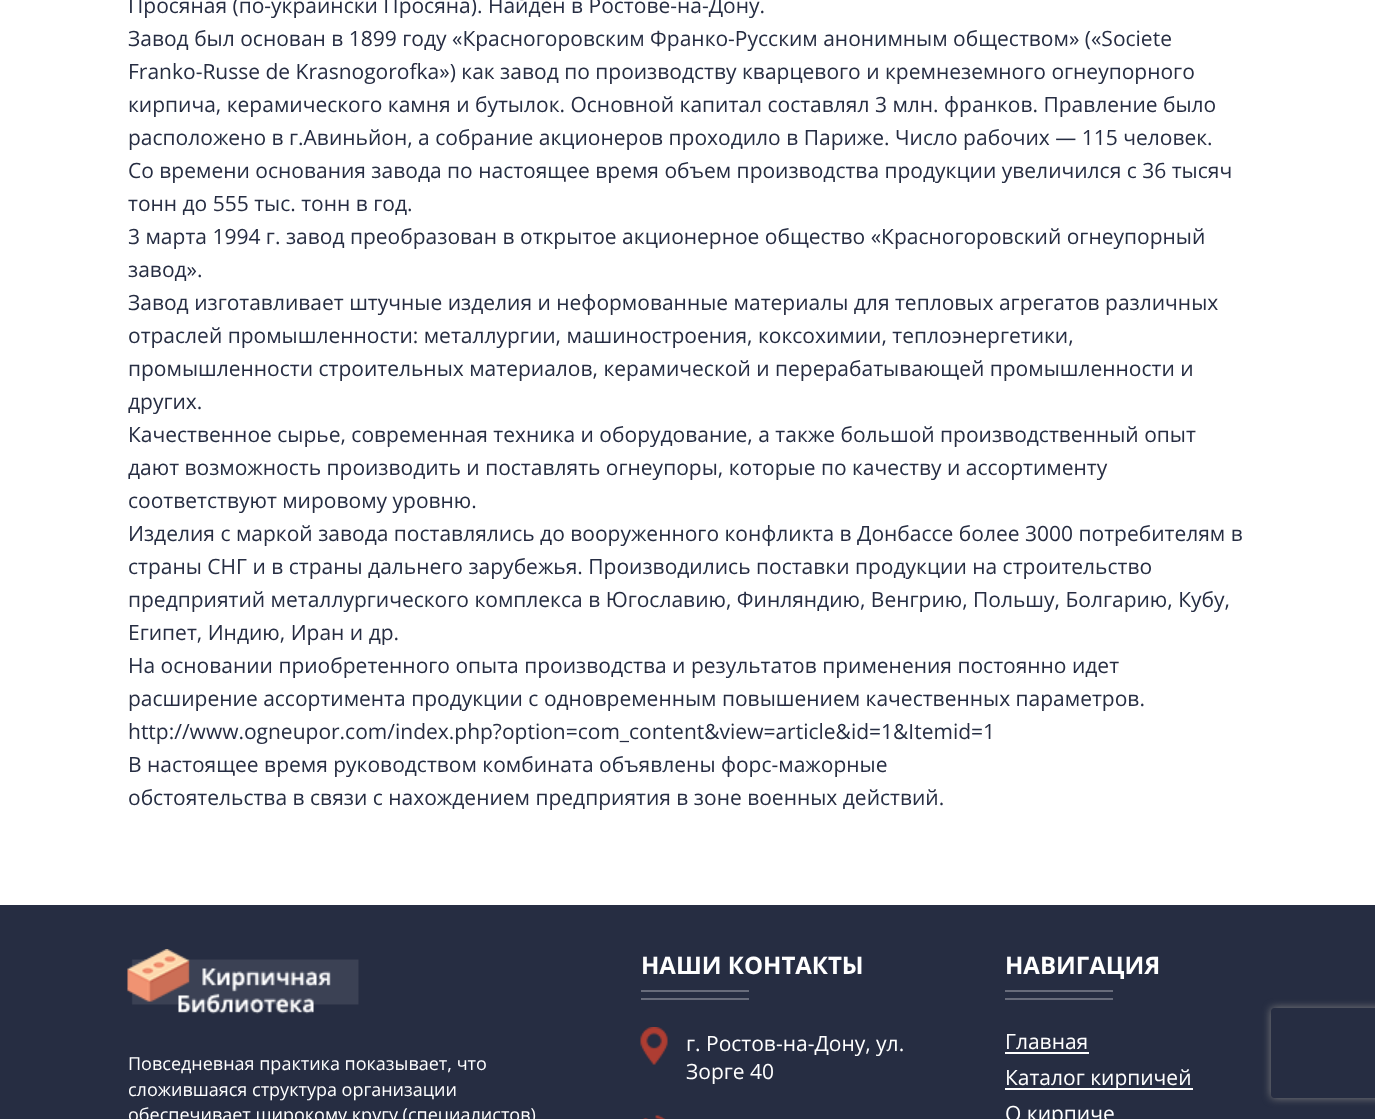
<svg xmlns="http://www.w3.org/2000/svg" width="1375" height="1119">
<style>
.a{font:21px Open Sans;fill:#262d42}
.b{font:18px Open Sans;fill:#fff}
.c{font:bold 24px Open Sans;fill:#fff}
.d{font:21px Open Sans;fill:#fff}
</style>
<defs>
<clipPath id="clip1"><path d="M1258 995h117v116h-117zm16 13h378c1.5 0 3 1.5 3 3v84c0 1.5-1.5 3-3 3h-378c-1.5 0-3-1.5-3-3v-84c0-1.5 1.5-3 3-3z" clip-rule="evenodd"/></clipPath>
</defs>
<rect width="100%" height="100%" fill="#fff"/>
<path fill="#262d42" d="M0 905h1375v214H0z"/>
<image href="1.png" x="127" y="949" width="232" height="65"/>
<path fill="#686c7b" d="M641 990h108v2H641z"/>
<path fill="#686c7b" d="M641 998h108v2H641z"/>
<image href="2.png" x="640" y="1027" width="28" height="38"/>
<image href="3.png" x="643" y="1115" width="23" height="4"/>
<path fill="#686c7b" d="M1005 990h108v2H1005z"/>
<path fill="#686c7b" d="M1005 998h108v2H1005z"/>
<path fill="#fff" d="M1005 1052h84v2H1005z"/>
<path fill="#fff" d="M1005 1088h188v2H1005z"/>
<g clip-path="url(#clip1)">
<rect fill="#808080" filter="blur(4px)" x="1271" y="1008" width="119" height="90" rx="3"/>
</g>
<text class="a" x="128" y="13">Просяная (по-украински Просяна). Найден в Ростове-на-Дону.</text>
<text class="a" x="128" y="46">Завод был основан в 1899 году «Красногоровским Франко-Русским анонимным обществом» («Societe</text>
<text class="a" x="128" y="79">Franko-Russe de Krasnogorofka») как завод по производству кварцевого и кремнеземного огнеупорного</text>
<text class="a" x="128" y="112">кирпича, керамического камня и бутылок. Основной капитал составлял 3 млн. франков. Правление было</text>
<text class="a" x="128" y="145">расположено в г.Авиньйон, а собрание акционеров проходило в Париже. Число рабочих — 115 человек.</text>
<text class="a" x="128" y="178">Со времени основания завода по настоящее время объем производства продукции увеличился с 36 тысяч</text>
<text class="a" x="128" y="211">тонн до 555 тыс. тонн в год.</text>
<text class="a" x="128" y="244">3 марта 1994 г. завод преобразован в открытое акционерное общество «Красногоровский огнеупорный</text>
<text class="a" x="128" y="277">завод».</text>
<text class="a" x="128" y="310">Завод изготавливает штучные изделия и неформованные материалы для тепловых агрегатов различных</text>
<text class="a" x="128" y="343">отраслей промышленности: металлургии, машиностроения, коксохимии, теплоэнергетики,</text>
<text class="a" x="128" y="376">промышленности строительных материалов, керамической и перерабатывающей промышленности и</text>
<text class="a" x="128" y="409">других.</text>
<text class="a" x="128" y="442">Качественное сырье, современная техника и оборудование, а также большой производственный опыт</text>
<text class="a" x="128" y="475">дают возможность производить и поставлять огнеупоры, которые по качеству и ассортименту</text>
<text class="a" x="128" y="508">соответствуют мировому уровню.</text>
<text class="a" x="128" y="541">Изделия с маркой завода поставлялись до вооруженного конфликта в Донбассе более 3000 потребителям в</text>
<text class="a" x="128" y="574">страны СНГ и в страны дальнего зарубежья. Производились поставки продукции на строительство</text>
<text class="a" x="128" y="607">предприятий металлургического комплекса в Югославию, Финляндию, Венгрию, Польшу, Болгарию, Кубу,</text>
<text class="a" x="128" y="640">Египет, Индию, Иран и др.</text>
<text class="a" x="128" y="673">На основании приобретенного опыта производства и результатов применения постоянно идет</text>
<text class="a" x="128" y="706">расширение ассортимента продукции с одновременным повышением качественных параметров.</text>
<text class="a" x="128" y="739">http://www.ogneupor.com/index.php?option=com_content&amp;view=article&amp;id=1&amp;Itemid=1</text>
<text class="a" x="128" y="772">В настоящее время руководством комбината объявлены форс-мажорные</text>
<text class="a" x="128" y="805">обстоятельства в связи с нахождением предприятия в зоне военных действий.</text>
<text class="b" x="128" y="1070">Повседневная практика показывает, что</text>
<text class="b" x="128" y="1096">сложившаяся структура организации</text>
<text class="b" x="128" y="1121">обеспечивает широкому кругу (специалистов)</text>
<text class="c" x="641" y="974">НАШИ КОНТАКТЫ</text>
<text class="d" x="686" y="1051">г. Ростов-на-Дону, ул.</text>
<text class="d" x="686" y="1079">Зорге 40</text>
<text class="c" x="1005" y="974">НАВИГАЦИЯ</text>
<text class="d" x="1005" y="1049">Главная</text>
<text class="d" x="1005" y="1085">Каталог кирпичей</text>
<text class="d" x="1005" y="1121">О кирпиче</text>
</svg>
